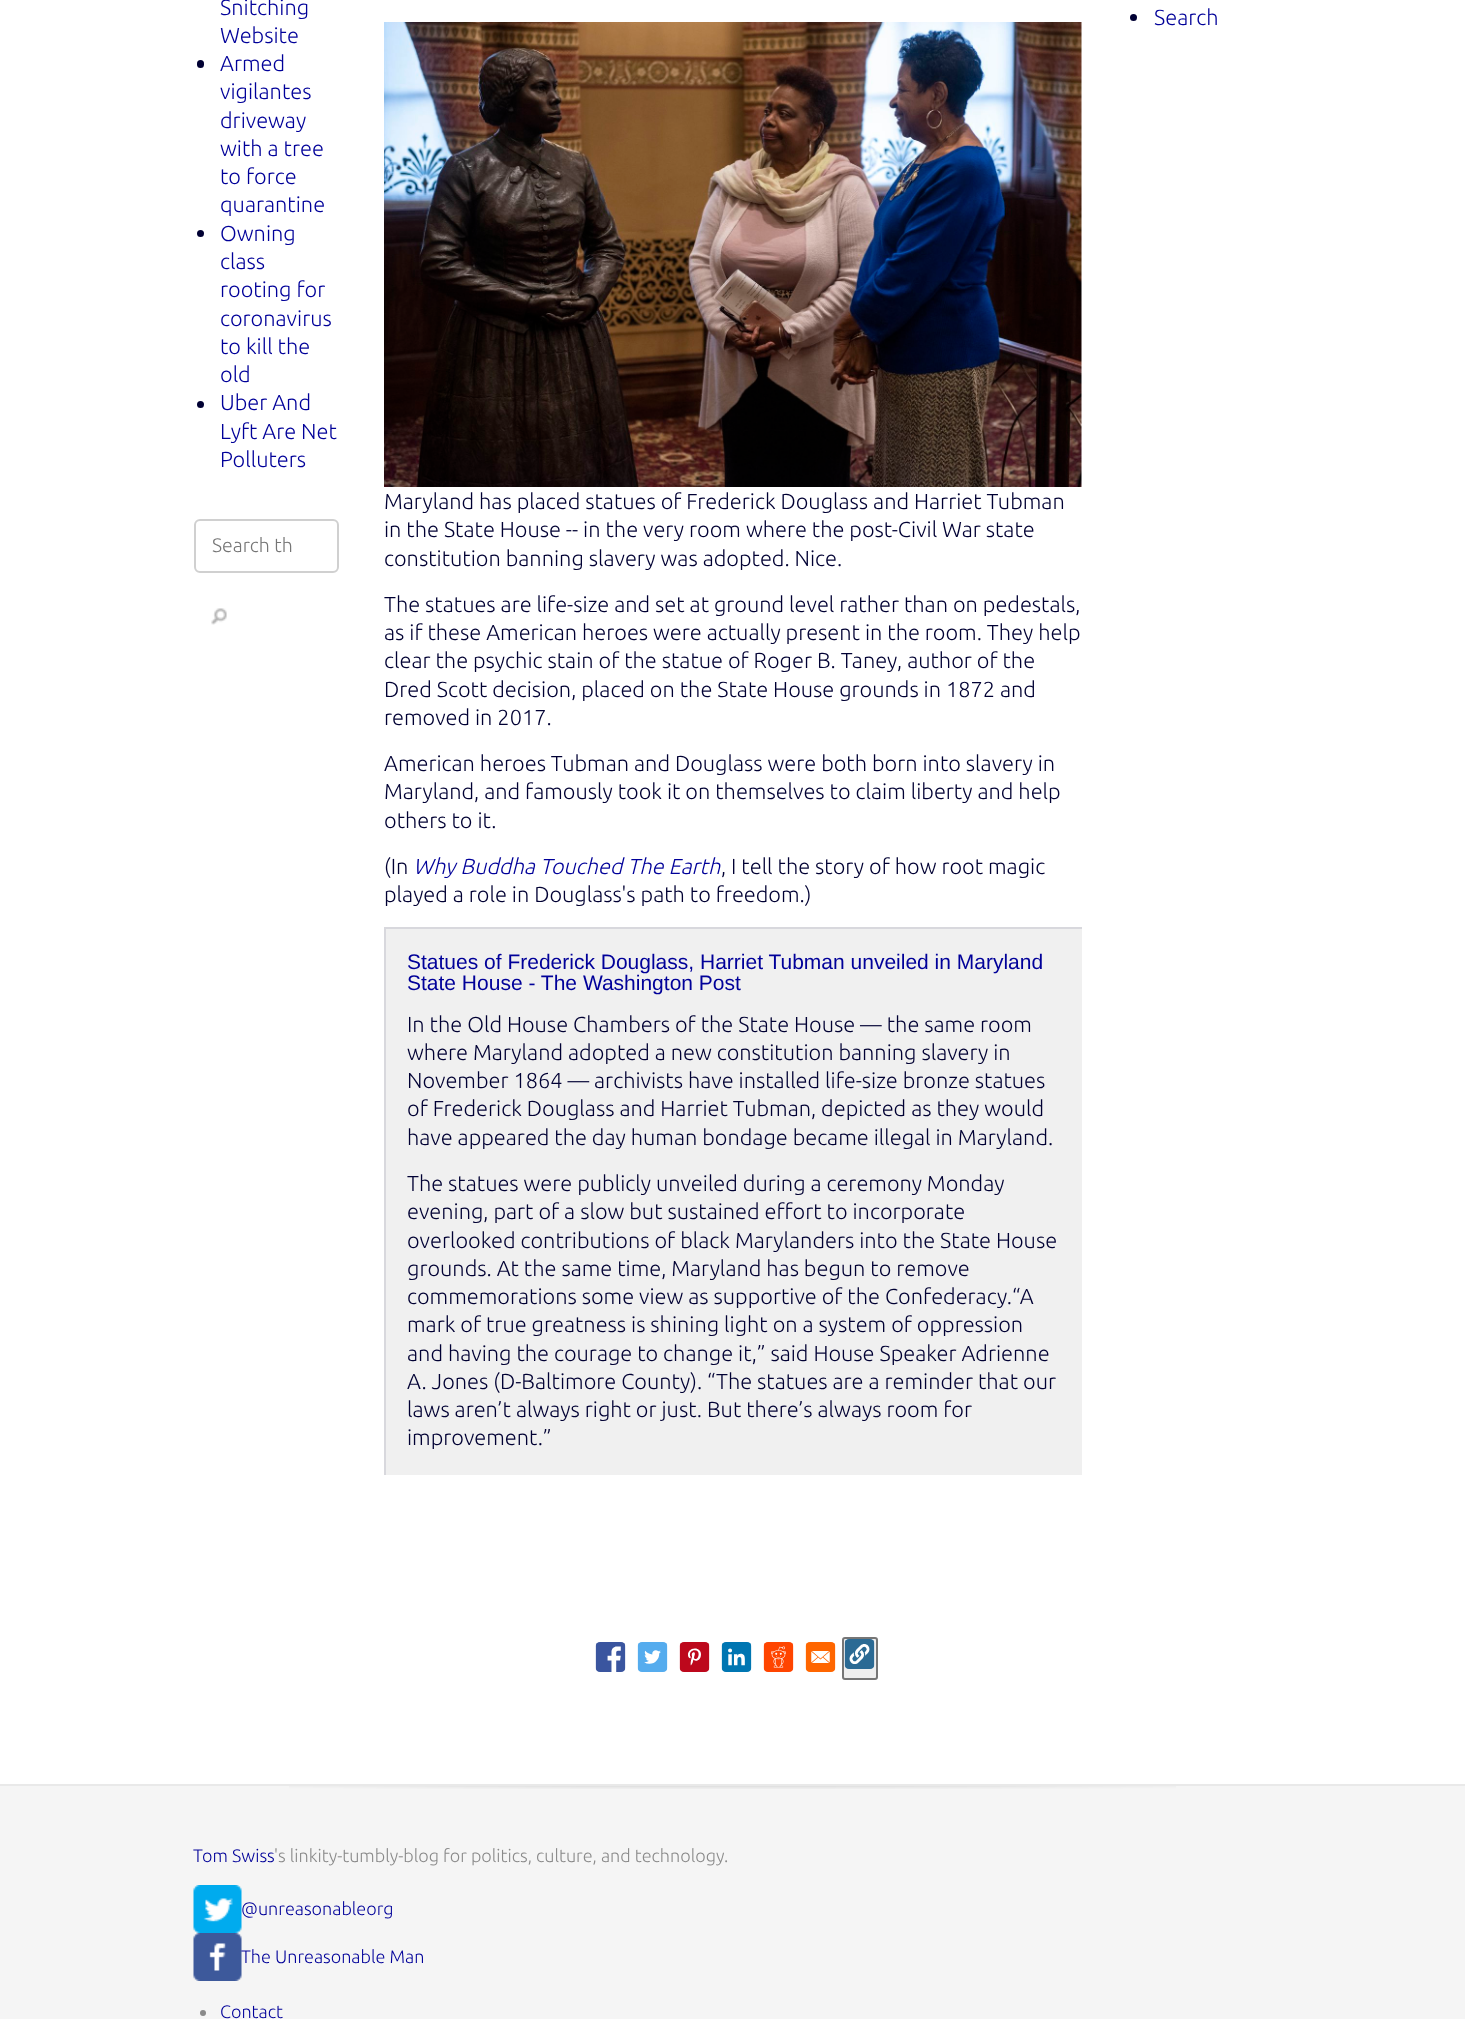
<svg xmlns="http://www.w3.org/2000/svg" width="1465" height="2019">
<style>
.a{font:300 21.75px Ubuntu;fill:#009}
.b{font:300 19.5px Ubuntu;fill:#757575}
.c{font:300 21.75px Ubuntu;fill:#003}
.d{font:italic 300 21.75px Ubuntu;fill:#009}
.e{font:21px Liberation Sans;fill:#009}
.f{font:300 18px Ubuntu;fill:#009}
.g{font:300 18px Ubuntu;fill:#8a8a8a}
</style>
<rect width="100%" height="100%" fill="#fff"/>
<rect fill="#003" x="197" y="60" width="7" height="8" rx="3.5"/>
<circle fill="#003" cx="200.5" cy="233.5" r="3.5"/>
<circle fill="#003" cx="200.5" cy="404.5" r="3.5"/>
<rect fill="none" stroke="#d0d0d0" stroke-width="2" x="195" y="520" width="143" height="52" rx="5"/>
<image href="1.png" x="211" y="608" width="16" height="17"/>
<circle fill="#003" cx="1133.5" cy="17.5" r="3.5"/>
<image href="2.png" x="384" y="22" width="698" height="465"/>
<path fill="#f0f0f0" d="M386 929h696v546H386z"/>
<path fill="#d8d8dd" d="M384 927h698v2H384z"/>
<path fill="#d8d8dd" d="M384 927h2v548H384z"/>
<image href="3.png" x="595" y="1642" width="31" height="30"/>
<image href="4.png" x="637" y="1642" width="31" height="30"/>
<image href="5.png" x="679" y="1642" width="31" height="30"/>
<image href="6.png" x="721" y="1642" width="31" height="30"/>
<image href="7.png" x="763" y="1642" width="31" height="30"/>
<image href="8.png" x="805" y="1642" width="31" height="30"/>
<rect fill="#efefef" stroke="#767676" stroke-width="2" x="843" y="1638" width="34" height="41" rx="2"/>
<image href="9.png" x="844" y="1639" width="31" height="30"/>
<path fill="#f5f5f5" d="M0 1786h1465v233H0z"/>
<image href="10.png" x="289" y="1786" width="887" height="3"/>
<path fill="#e9e9e9" d="M0 1784h1465v2H0z"/>
<image href="11.png" x="193" y="1885" width="49" height="48"/>
<image href="12.png" x="193" y="1933" width="49" height="48"/>
<circle fill="#8a8a8a" cx="203" cy="2013" r="3"/>
<text class="a" x="220" y="15">Snitching</text>
<text class="a" x="220" y="43">Website</text>
<text class="a" x="220" y="71">Armed</text>
<text class="a" x="220" y="99">vigilantes</text>
<text class="a" x="220" y="128">driveway</text>
<text class="a" x="220" y="156">with a tree</text>
<text class="a" x="220" y="184">to force</text>
<text class="a" x="220" y="212">quarantine</text>
<text class="a" x="220" y="241">Owning</text>
<text class="a" x="220" y="269">class</text>
<text class="a" x="220" y="297">rooting for</text>
<text class="a" x="220" y="326">coronavirus</text>
<text class="a" x="220" y="354">to kill the</text>
<text class="a" x="220" y="382">old</text>
<text class="a" x="220" y="410">Uber And</text>
<text class="a" x="220" y="439">Lyft Are Net</text>
<text class="a" x="220" y="467">Polluters</text>
<text class="b" x="212" y="552">Search th</text>
<text class="a" x="1154" y="25">Search</text>
<text class="c" x="384" y="509">Maryland has placed statues of Frederick Douglass and Harriet Tubman</text>
<text class="c" x="384" y="537">in the State House -- in the very room where the post-Civil War state</text>
<text class="c" x="384" y="566">constitution banning slavery was adopted. Nice.</text>
<text class="c" x="384" y="612">The statues are life-size and set at ground level rather than on pedestals,</text>
<text class="c" x="384" y="640">as if these American heroes were actually present in the room. They help</text>
<text class="c" x="384" y="668">clear the psychic stain of the statue of Roger B. Taney, author of the</text>
<text class="c" x="384" y="697">Dred Scott decision, placed on the State House grounds in 1872 and</text>
<text class="c" x="384" y="725">removed in 2017.</text>
<text class="c" x="384" y="771">American heroes Tubman and Douglass were both born into slavery in</text>
<text class="c" x="384" y="799">Maryland, and famously took it on themselves to claim liberty and help</text>
<text class="c" x="384" y="828">others to it.</text>
<text class="c" x="384" y="874">(In</text>
<text class="d" x="413" y="874">Why Buddha Touched The Earth</text>
<text class="c" x="721" y="874">, I tell the story of how root magic</text>
<text class="c" x="384" y="902">played a role in Douglass's path to freedom.)</text>
<text class="e" x="407" y="969">Statues of Frederick Douglass, Harriet Tubman unveiled in Maryland</text>
<text class="e" x="407" y="990">State House - The Washington Post</text>
<text class="c" x="407" y="1032">In the Old House Chambers of the State House — the same room</text>
<text class="c" x="407" y="1060">where Maryland adopted a new constitution banning slavery in</text>
<text class="c" x="407" y="1088">November 1864 — archivists have installed life-size bronze statues</text>
<text class="c" x="407" y="1116">of Frederick Douglass and Harriet Tubman, depicted as they would</text>
<text class="c" x="407" y="1145">have appeared the day human bondage became illegal in Maryland.</text>
<text class="c" x="407" y="1191">The statues were publicly unveiled during a ceremony Monday</text>
<text class="c" x="407" y="1219">evening, part of a slow but sustained effort to incorporate</text>
<text class="c" x="407" y="1248">overlooked contributions of black Marylanders into the State House</text>
<text class="c" x="407" y="1276">grounds. At the same time, Maryland has begun to remove</text>
<text class="c" x="407" y="1304">commemorations some view as supportive of the Confederacy.“A</text>
<text class="c" x="407" y="1332">mark of true greatness is shining light on a system of oppression</text>
<text class="c" x="407" y="1361">and having the courage to change it,” said House Speaker Adrienne</text>
<text class="c" x="407" y="1389">A. Jones (D-Baltimore County). “The statues are a reminder that our</text>
<text class="c" x="407" y="1417">laws aren’t always right or just. But there’s always room for</text>
<text class="c" x="407" y="1445">improvement.”</text>
<text class="f" x="193" y="1862">Tom Swiss</text>
<text class="g" x="274" y="1862">'s linkity-tumbly-blog for politics, culture, and technology.</text>
<text class="f" x="241" y="1915">@unreasonableorg</text>
<text class="f" x="241" y="1963">The Unreasonable Man</text>
<text class="f" x="220" y="2018">Contact</text>
</svg>
